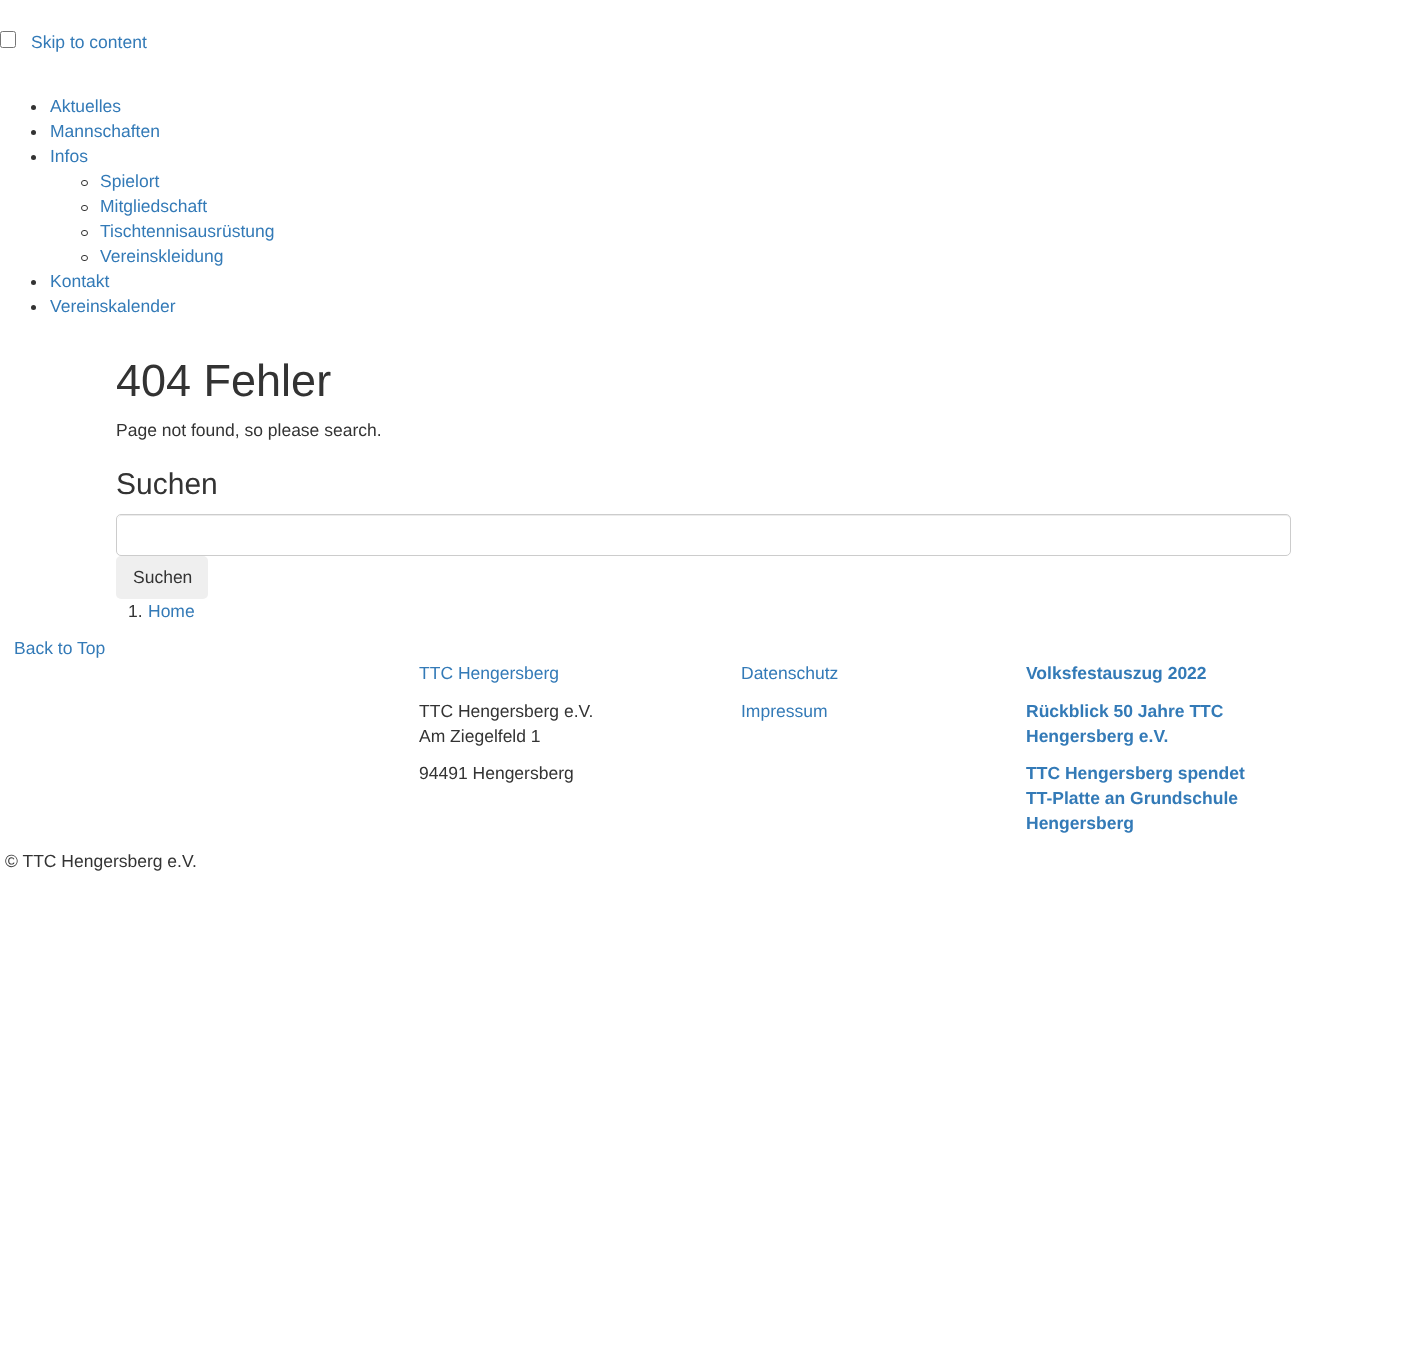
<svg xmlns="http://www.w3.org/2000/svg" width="1407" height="1359">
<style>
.a{font:17.5px Liberation Sans;fill:#337ab7}
.b{font:45px Liberation Sans;fill:#333}
.c{font:17.5px Liberation Sans;fill:#333}
.d{font:30px Liberation Sans;fill:#333}
.e{font:bold 17.5px Liberation Sans;fill:#337ab7}
</style>
<rect width="100%" height="100%" fill="#fff"/>
<rect fill="none" stroke="#767676" x="0.5" y="31.5" width="15" height="16" rx="2"/>
<circle fill="#333" cx="33.5" cy="107.5" r="2.5"/>
<circle fill="#333" cx="33.5" cy="132.5" r="2.5"/>
<circle fill="#333" cx="33.5" cy="157.5" r="2.5"/>
<rect fill="none" stroke="#333" x="81.5" y="180.5" width="6" height="5" rx="2.5"/>
<rect fill="none" stroke="#333" x="81.5" y="205.5" width="6" height="5" rx="2.5"/>
<rect fill="none" stroke="#333" x="81.5" y="230.5" width="6" height="5" rx="2.5"/>
<rect fill="none" stroke="#333" x="81.5" y="255.5" width="6" height="5" rx="2.5"/>
<circle fill="#333" cx="33.5" cy="282.5" r="2.5"/>
<circle fill="#333" cx="33.5" cy="307.5" r="2.5"/>
<path fill="#ececec" d="M121 516h1165c2 0 4 2 4 4c0-3-1-5-4-5h-1164c-3 0-4 2-4 5c0-2 1-4 3-4z"/>
<rect fill="none" stroke="#ccc" x="116.5" y="514.5" width="1174" height="41" rx="4.5"/>
<rect fill="#efefef" x="116" y="556" width="92" height="43" rx="5"/>
<text class="a" x="31" y="48">Skip to content</text>
<text class="a" x="50" y="112">Aktuelles</text>
<text class="a" x="50" y="137">Mannschaften</text>
<text class="a" x="50" y="162">Infos</text>
<text class="a" x="100" y="187">Spielort</text>
<text class="a" x="100" y="212">Mitgliedschaft</text>
<text class="a" x="100" y="237">Tischtennisausrüstung</text>
<text class="a" x="100" y="262">Vereinskleidung</text>
<text class="a" x="50" y="287">Kontakt</text>
<text class="a" x="50" y="312">Vereinskalender</text>
<text class="b" x="116" y="396">404 Fehler</text>
<text class="c" x="116" y="436">Page not found, so please search.</text>
<text class="d" x="116" y="494">Suchen</text>
<text class="c" x="133" y="583">Suchen</text>
<text class="c" x="128" y="617">1.</text>
<text class="a" x="148" y="617">Home</text>
<text class="a" x="14" y="654">Back to Top</text>
<text class="a" x="419" y="679">TTC Hengersberg</text>
<text class="c" x="419" y="717">TTC Hengersberg e.V.</text>
<text class="c" x="419" y="742">Am Ziegelfeld 1</text>
<text class="c" x="419" y="779">94491 Hengersberg</text>
<text class="a" x="741" y="679">Datenschutz</text>
<text class="a" x="741" y="717">Impressum</text>
<text class="e" x="1026" y="679">Volksfestauszug 2022</text>
<text class="e" x="1026" y="717">Rückblick 50 Jahre TTC</text>
<text class="e" x="1026" y="742">Hengersberg e.V.</text>
<text class="e" x="1026" y="779">TTC Hengersberg spendet</text>
<text class="e" x="1026" y="804">TT-Platte an Grundschule</text>
<text class="e" x="1026" y="829">Hengersberg</text>
<text class="c" x="5" y="867">© TTC Hengersberg e.V.</text>
</svg>
